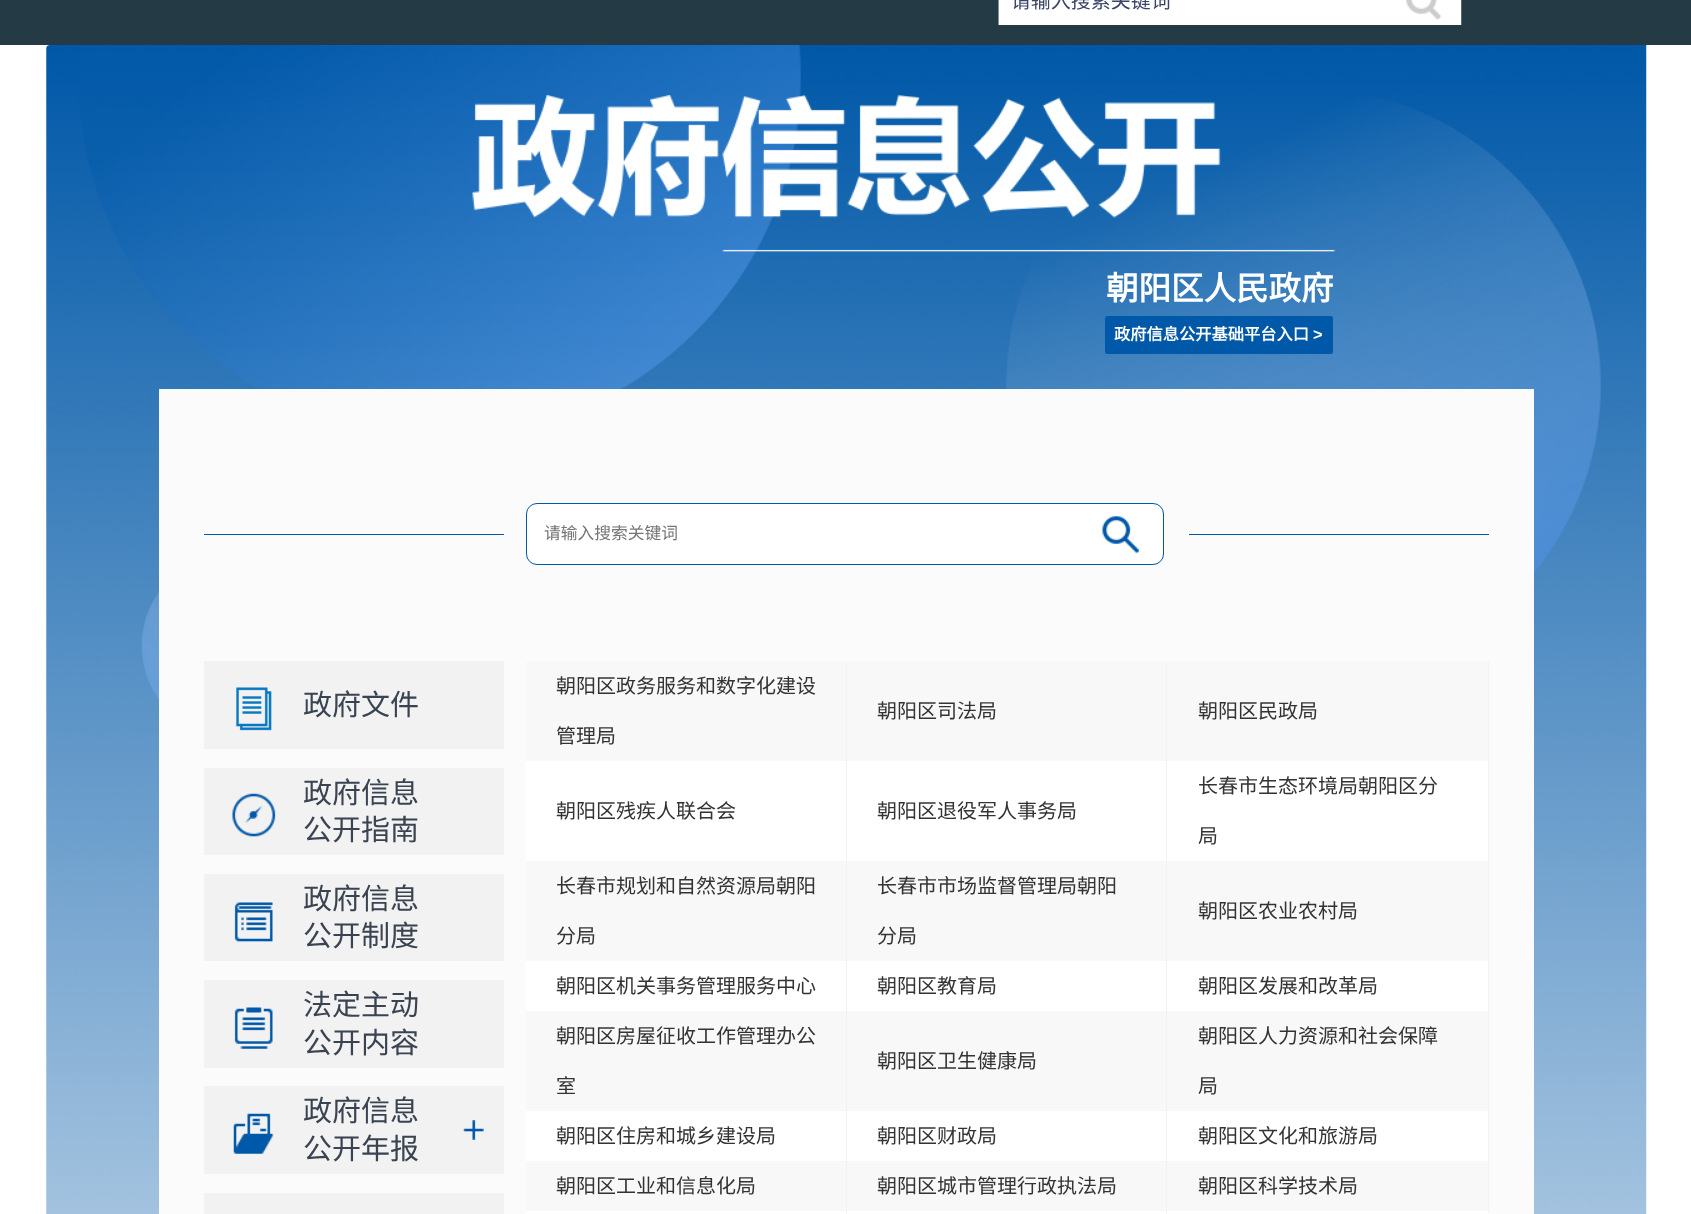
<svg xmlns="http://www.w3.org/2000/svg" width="1691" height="1214">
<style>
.a{font:bold 32.5px Noto Sans CJK SC;fill:#fff}
.b{font:bold 16.25px Noto Sans CJK SC;fill:#fff}
.c{font:bold 16.25px Liberation Sans;fill:#fff}
.d{font:16.75px Noto Sans CJK SC;fill:#757575}
.e{font:29px Noto Sans CJK SC;fill:#394351}
.f{font:20px Noto Sans CJK SC;fill:#333}
</style>
<rect width="100%" height="100%" fill="#fff"/>
<image href="1.png" x="0" y="0" width="1691" height="45"/>
<image href="2.png" x="46" y="45" width="1601" height="1169"/>
<image href="3.png" x="472" y="95" width="864" height="157"/>
<rect fill="#0058a8" x="1105" y="316" width="228" height="38" rx="2.5"/>
<path fill="#fbfbfb" d="M159 389h1375v825H159z"/>
<path fill="#0058a8" d="M204 534h300v1H204z"/>
<rect fill="#fff" stroke="#0058a8" x="526.5" y="503.5" width="637" height="61" rx="10.5"/>
<image href="4.png" x="1102" y="516" width="38" height="38"/>
<path fill="#0058a8" d="M1189 534h300v1H1189z"/>
<path fill="#f2f2f2" d="M204 661h300v88H204z"/>
<image href="5.png" x="236" y="687" width="36" height="44"/>
<path fill="#f2f2f2" d="M204 768h300v87H204z"/>
<image href="6.png" x="232" y="793" width="44" height="44"/>
<path fill="#f2f2f2" d="M204 874h300v87H204z"/>
<image href="7.png" x="234" y="902" width="39" height="40"/>
<path fill="#f2f2f2" d="M204 980h300v88H204z"/>
<image href="8.png" x="234" y="1007" width="39" height="42"/>
<path fill="#f2f2f2" d="M204 1086h300v88H204z"/>
<image href="9.png" x="233" y="1113" width="41" height="41"/>
<image href="10.png" x="463" y="1120" width="21" height="20"/>
<path fill="#f2f2f2" d="M204 1193h300v21H204z"/>
<path fill="#fff" d="M526 761h963v453H526z"/>
<path fill="#f8f8f8" d="M526 661h962v100H526z"/>
<path fill="#f8f8f8" d="M526 861h962v100H526z"/>
<path fill="#f8f8f8" d="M526 1011h962v100H526z"/>
<path fill="#f8f8f8" d="M526 1161h962v50H526z"/>
<path fill="#f2f2f2" d="M846 661h1v553H846z"/>
<path fill="#f2f2f2" d="M1166 661h1v553H1166z"/>
<path fill="#f2f2f2" d="M1488 661h1v552H1488z"/>
<text class="a" x="1106" y="300">朝阳区人民政府</text>
<text class="b" x="1114" y="340">政府信息公开基础平台入口</text>
<text class="c" x="1313" y="340">&gt;</text>
<text class="d" x="544" y="539">请输入搜索关键词</text>
<text class="e" x="303" y="715">政府文件</text>
<text class="e" x="303" y="803">政府信息</text>
<text class="e" x="303" y="840">公开指南</text>
<text class="e" x="303" y="909">政府信息</text>
<text class="e" x="303" y="946">公开制度</text>
<text class="e" x="303" y="1015">法定主动</text>
<text class="e" x="303" y="1053">公开内容</text>
<text class="e" x="303" y="1121">政府信息</text>
<text class="e" x="303" y="1159">公开年报</text>
<text class="f" x="556" y="693">朝阳区政务服务和数字化建设</text>
<text class="f" x="556" y="743">管理局</text>
<text class="f" x="877" y="718">朝阳区司法局</text>
<text class="f" x="1198" y="718">朝阳区民政局</text>
<text class="f" x="556" y="818">朝阳区残疾人联合会</text>
<text class="f" x="877" y="818">朝阳区退役军人事务局</text>
<text class="f" x="1198" y="793">长春市生态环境局朝阳区分</text>
<text class="f" x="1198" y="843">局</text>
<text class="f" x="556" y="893">长春市规划和自然资源局朝阳</text>
<text class="f" x="556" y="943">分局</text>
<text class="f" x="877" y="893">长春市市场监督管理局朝阳</text>
<text class="f" x="877" y="943">分局</text>
<text class="f" x="1198" y="918">朝阳区农业农村局</text>
<text class="f" x="556" y="993">朝阳区机关事务管理服务中心</text>
<text class="f" x="877" y="993">朝阳区教育局</text>
<text class="f" x="1198" y="993">朝阳区发展和改革局</text>
<text class="f" x="556" y="1043">朝阳区房屋征收工作管理办公</text>
<text class="f" x="556" y="1093">室</text>
<text class="f" x="877" y="1068">朝阳区卫生健康局</text>
<text class="f" x="1198" y="1043">朝阳区人力资源和社会保障</text>
<text class="f" x="1198" y="1093">局</text>
<text class="f" x="556" y="1143">朝阳区住房和城乡建设局</text>
<text class="f" x="877" y="1143">朝阳区财政局</text>
<text class="f" x="1198" y="1143">朝阳区文化和旅游局</text>
<text class="f" x="556" y="1193">朝阳区工业和信息化局</text>
<text class="f" x="877" y="1193">朝阳区城市管理行政执法局</text>
<text class="f" x="1198" y="1193">朝阳区科学技术局</text>
</svg>
